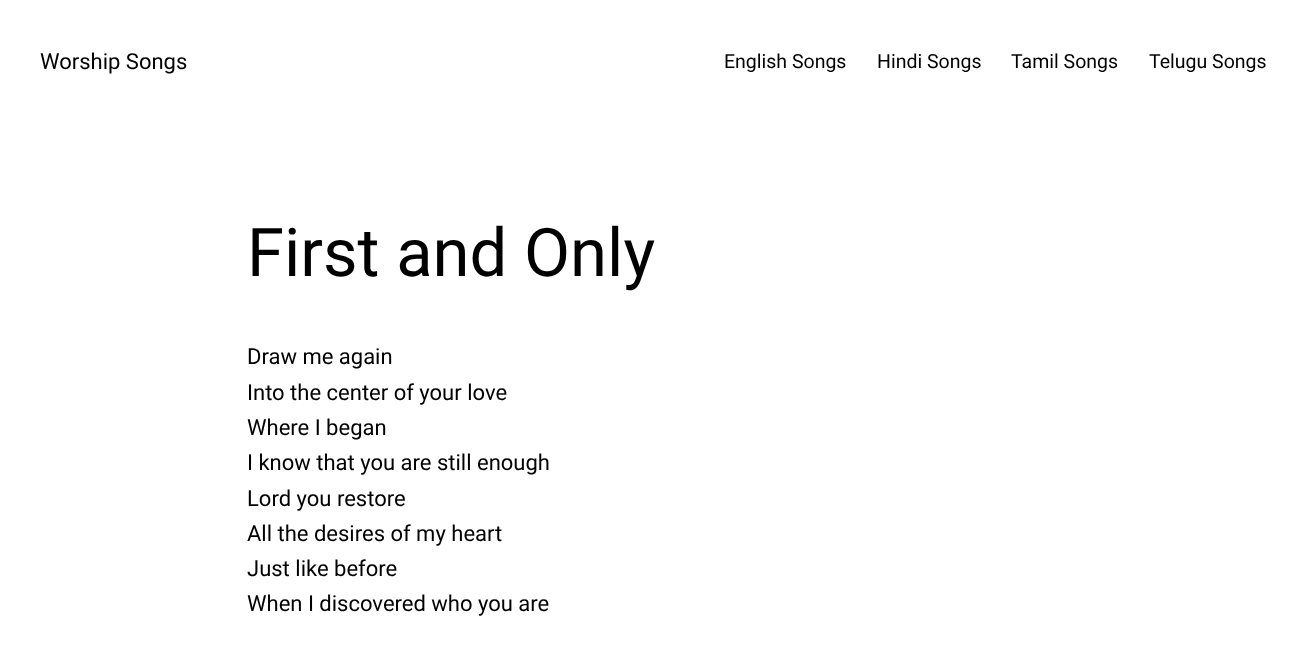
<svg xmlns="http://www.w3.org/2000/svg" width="1306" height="671">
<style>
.a{font:22px Roboto;fill:#000}
.b{font:19.5px Roboto;fill:#000}
.c{font:67px Roboto;fill:#000}
</style>
<rect width="100%" height="100%" fill="#fff"/>
<text class="a" x="40" y="69">Worship Songs</text>
<text class="b" x="724" y="68">English Songs</text>
<text class="b" x="877" y="68">Hindi Songs</text>
<text class="b" x="1011" y="68">Tamil Songs</text>
<text class="b" x="1149" y="68">Telugu Songs</text>
<text class="c" x="247" y="276">First and Only</text>
<text class="a" x="247" y="364">Draw me again</text>
<text class="a" x="247" y="400">Into the center of your love</text>
<text class="a" x="247" y="435">Where I began</text>
<text class="a" x="247" y="470">I know that you are still enough</text>
<text class="a" x="247" y="506">Lord you restore</text>
<text class="a" x="247" y="541">All the desires of my heart</text>
<text class="a" x="247" y="576">Just like before</text>
<text class="a" x="247" y="611">When I discovered who you are</text>
</svg>
